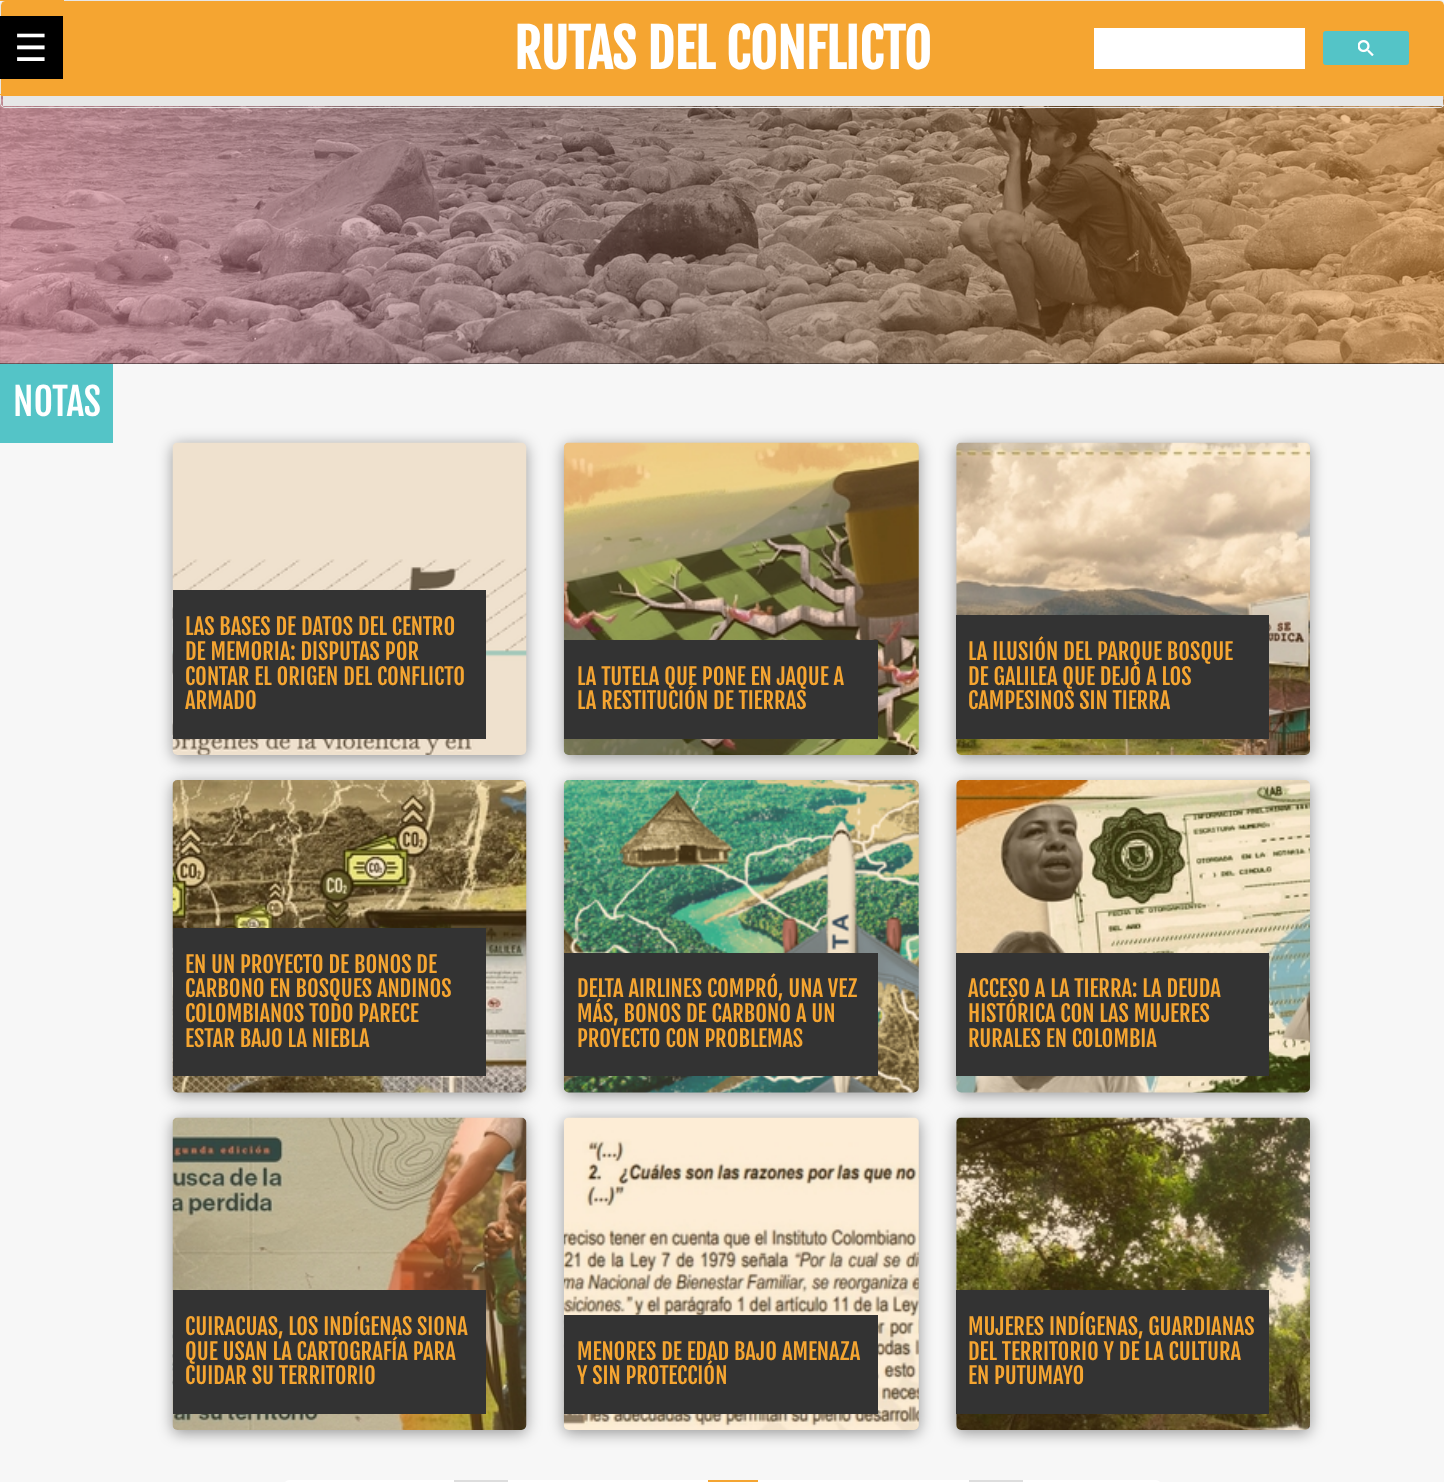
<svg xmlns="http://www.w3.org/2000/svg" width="1444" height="1482">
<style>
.a{font:37.5px DejaVu Sans;fill:#fff}
.b{font:bold 52.5px Fjalla One;fill:#fff}
.c{font:37.5px Fjalla One;fill:#fff}
.d{font:22.5px Fjalla One;fill:#f5a531}
</style>
<rect width="100%" height="100%" fill="#f7f7f7"/>
<path fill="#f5a531" d="M5 1h1435c2 0 4 2 4 4v91h-1443v-91c0-2 2-4 4-4z"/>
<path fill="#000" d="M0 103h1444v261H0z"/>
<image href="2.png" x="0" y="96" width="1444" height="268"/>
<rect fill="none" stroke="#e7e7e7" x="0.5" y="0.5" width="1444" height="107" rx="4.5"/>
<path fill="#f5a531" d="M0 0h64v1H0z"/>
<path fill="#f5a531" d="M0 94h1v1H0z"/>
<path fill="#000" d="M0 16h63v63H0z"/>
<path fill="#e7e7e7" d="M3 96h1440v10H3z"/>
<path fill="#fff" d="M1094 28h211v41H1094z"/>
<rect fill="#54c4c7" stroke="#54c4c7" x="1323.5" y="31.5" width="85" height="33" rx="2"/>
<image href="1.png" x="1358" y="40" width="16" height="16"/>
<path fill="#54c4c7" d="M0 364h113v79H0z"/>
<rect fill="#00000066" filter="blur(7.5px)" x="173" y="445" width="353" height="313" rx="5"/>
<image href="3.png" x="172" y="442" width="355" height="313"/>
<path fill="#333" d="M173 590h313v149H173z"/>
<rect fill="#00000066" filter="blur(7.5px)" x="564" y="445" width="355" height="313" rx="5"/>
<image href="4.png" x="563" y="442" width="356" height="313"/>
<path fill="#333" d="M564 640h314v99H564z"/>
<rect fill="#00000066" filter="blur(7.5px)" x="956" y="445" width="354" height="313" rx="5"/>
<image href="5.png" x="956" y="442" width="354" height="313"/>
<path fill="#333" d="M956 615h313v124H956z"/>
<rect fill="#00000066" filter="blur(7.5px)" x="173" y="783" width="353" height="312" rx="5"/>
<image href="6.png" x="172" y="780" width="355" height="313"/>
<path fill="#333" d="M173 928h313v148H173z"/>
<rect fill="#00000066" filter="blur(7.5px)" x="564" y="783" width="355" height="312" rx="5"/>
<image href="7.png" x="563" y="780" width="356" height="313"/>
<path fill="#333" d="M564 953h314v123H564z"/>
<rect fill="#00000066" filter="blur(7.5px)" x="956" y="783" width="354" height="312" rx="5"/>
<image href="8.png" x="956" y="780" width="354" height="313"/>
<path fill="#333" d="M956 953h313v123H956z"/>
<rect fill="#00000066" filter="blur(7.5px)" x="173" y="1120" width="353" height="313" rx="5"/>
<image href="9.png" x="172" y="1117" width="355" height="313"/>
<path fill="#333" d="M173 1290h313v124H173z"/>
<rect fill="#00000066" filter="blur(7.5px)" x="564" y="1120" width="355" height="313" rx="5"/>
<image href="10.png" x="563" y="1117" width="356" height="313"/>
<path fill="#333" d="M564 1315h314v99H564z"/>
<rect fill="#00000066" filter="blur(7.5px)" x="956" y="1120" width="354" height="313" rx="5"/>
<image href="11.png" x="956" y="1117" width="354" height="313"/>
<path fill="#333" d="M956 1290h313v124H956z"/>
<path fill="none" stroke="#fff" stroke-width="6" d="M289 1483h63v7h-63c-1 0-2-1-2-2v-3c0-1 1-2 2-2z"/>
<path fill="none" stroke="#fff" stroke-width="6" d="M357 1483h95v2H357z"/>
<path fill="none" stroke="#ddd" stroke-width="6" d="M457 1483h49v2H457z"/>
<path fill="none" stroke="#fff" stroke-width="6" d="M511 1483h45v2H511z"/>
<path fill="none" stroke="#fff" stroke-width="6" d="M561 1483h45v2H561z"/>
<path fill="none" stroke="#fff" stroke-width="6" d="M611 1483h45v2H611z"/>
<path fill="none" stroke="#fff" stroke-width="6" d="M661 1483h45v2H661z"/>
<path fill="none" stroke="#fff" stroke-width="6" d="M759 1483h46v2H759z"/>
<path fill="#f5a531" d="M708 1480h50v2H708z"/>
<path fill="none" stroke="#fff" stroke-width="6" d="M809 1483h46v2H809z"/>
<path fill="none" stroke="#fff" stroke-width="6" d="M859 1483h53v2H859z"/>
<path fill="none" stroke="#fff" stroke-width="6" d="M917 1483h50v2H917z"/>
<path fill="none" stroke="#ddd" stroke-width="6" d="M972 1483h49v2H972z"/>
<path fill="none" stroke="#fff" stroke-width="6" d="M1026 1483h66v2H1026z"/>
<path fill="none" stroke="#fff" stroke-width="6" d="M1097 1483h59c1 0 2 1 2 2v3c0 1-1 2-2 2h-59z"/>
<text class="a" x="14" y="61">☰</text>
<text class="b" x="514" y="69">RUTAS DEL CONFLICTO</text>
<text class="c" x="13" y="416">NOTAS</text>
<text class="d" x="185" y="635">LAS BASES DE DATOS DEL CENTRO</text>
<text class="d" x="185" y="660">DE MEMORIA: DISPUTAS POR</text>
<text class="d" x="185" y="685">CONTAR EL ORIGEN DEL CONFLICTO</text>
<text class="d" x="185" y="709">ARMADO</text>
<text class="d" x="577" y="685">LA TUTELA QUE PONE EN JAQUE A</text>
<text class="d" x="577" y="709">LA RESTITUCIÓN DE TIERRAS</text>
<text class="d" x="968" y="660">LA ILUSIÓN DEL PARQUE BOSQUE</text>
<text class="d" x="968" y="685">DE GALILEA QUE DEJÓ A LOS</text>
<text class="d" x="968" y="709">CAMPESINOS SIN TIERRA</text>
<text class="d" x="185" y="973">EN UN PROYECTO DE BONOS DE</text>
<text class="d" x="185" y="997">CARBONO EN BOSQUES ANDINOS</text>
<text class="d" x="185" y="1022">COLOMBIANOS TODO PARECE</text>
<text class="d" x="185" y="1047">ESTAR BAJO LA NIEBLA</text>
<text class="d" x="577" y="997">DELTA AIRLINES COMPRÓ, UNA VEZ</text>
<text class="d" x="577" y="1022">MÁS, BONOS DE CARBONO A UN</text>
<text class="d" x="577" y="1047">PROYECTO CON PROBLEMAS</text>
<text class="d" x="968" y="997">ACCESO A LA TIERRA: LA DEUDA</text>
<text class="d" x="968" y="1022">HISTÓRICA CON LAS MUJERES</text>
<text class="d" x="968" y="1047">RURALES EN COLOMBIA</text>
<text class="d" x="185" y="1335">CUIRACUAS, LOS INDÍGENAS SIONA</text>
<text class="d" x="185" y="1360">QUE USAN LA CARTOGRAFÍA PARA</text>
<text class="d" x="185" y="1384">CUIDAR SU TERRITORIO</text>
<text class="d" x="577" y="1360">MENORES DE EDAD BAJO AMENAZA</text>
<text class="d" x="577" y="1384">Y SIN PROTECCIÓN</text>
<text class="d" x="968" y="1335">MUJERES INDÍGENAS, GUARDIANAS</text>
<text class="d" x="968" y="1360">DEL TERRITORIO Y DE LA CULTURA</text>
<text class="d" x="968" y="1384">EN PUTUMAYO</text>
</svg>
